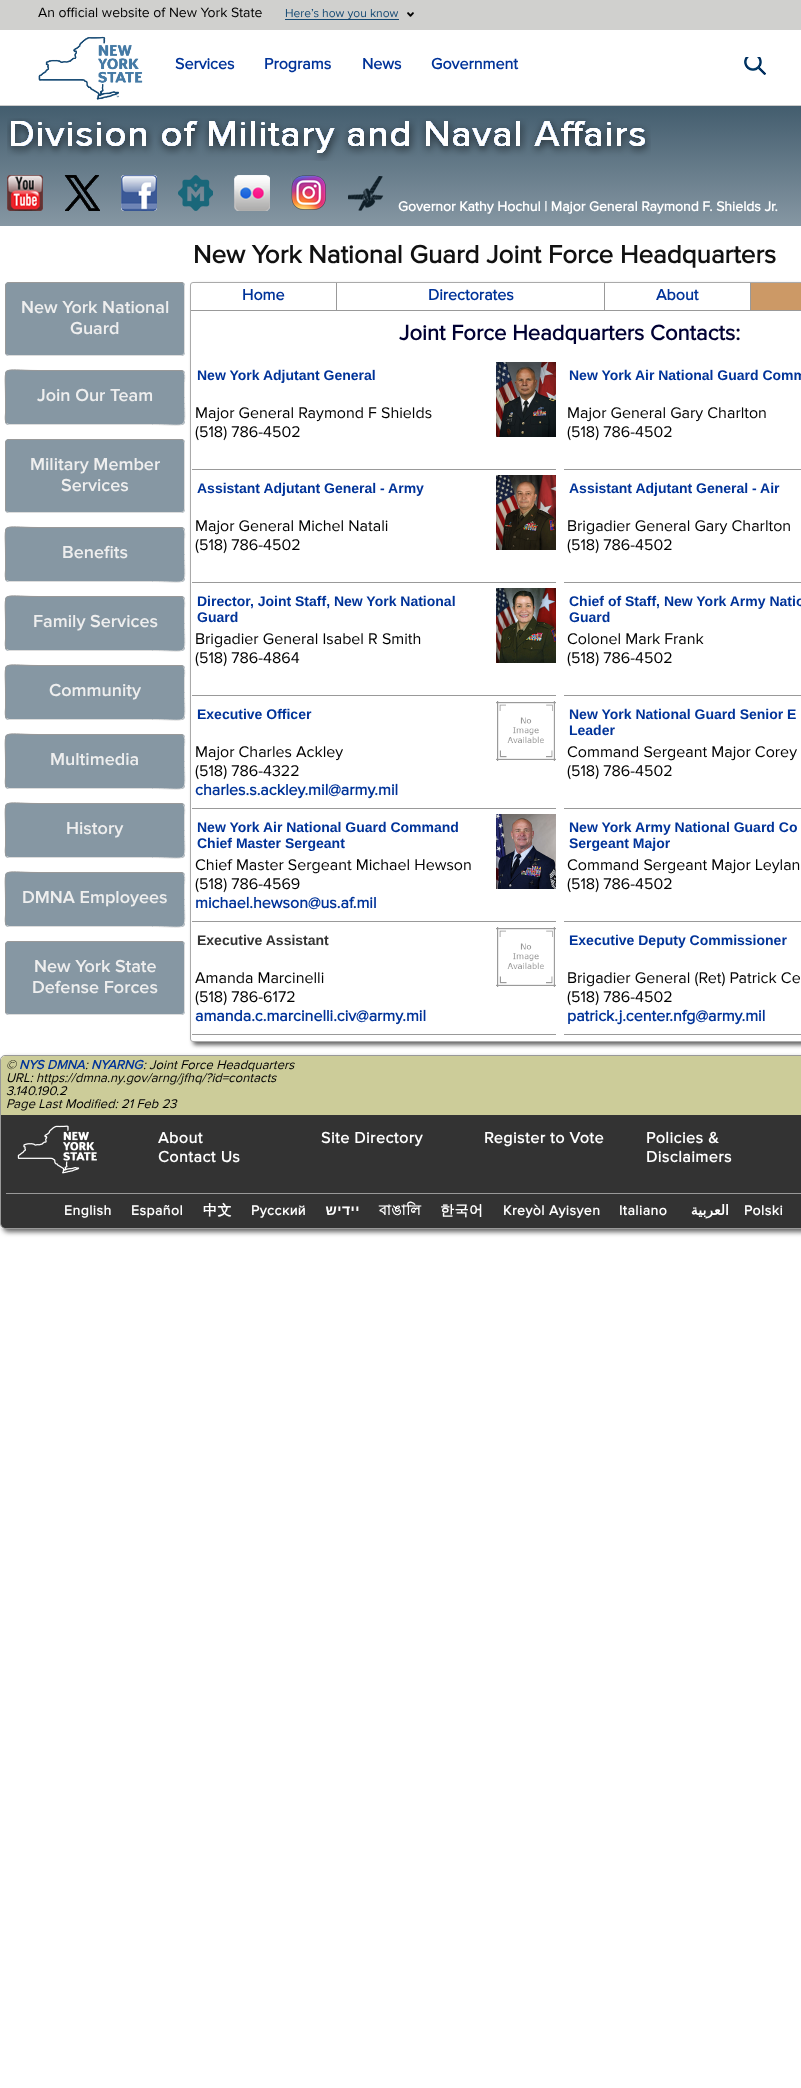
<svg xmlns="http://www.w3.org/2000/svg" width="801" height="2088">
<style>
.a{font:14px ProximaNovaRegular;fill:#000}
.b{font:12px ProximaNovaRegular;fill:#154973}
.c{font:bold 16px ProximaNovaRegular;fill:#039}
.d{font:bold 14px ProximaNovaRegular;fill:#fff}
.e{font:bold 26px ProximaNovaRegular;fill:#111}
.f{font:600 18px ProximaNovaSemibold;fill:#eee}
.g{font:bold 22px ProximaNovaRegular;fill:#003}
.h{font:bold 14px Liberation Sans;fill:#039}
.i{font:16px ProximaNovaRegular;fill:#000}
.j{font:bold 14px Liberation Sans;fill:#333}
.k{font:italic 13px ProximaNovaRegular;fill:#000}
.l{font:italic bold 13px ProximaNovaRegular;fill:#039}
.m{font:bold 16px ProximaNovaRegular;letter-spacing:0.5px;fill:#fff}
.n{font:bold 14px ProximaNovaRegular;letter-spacing:0.5px;fill:#fff}
.o{font:bold 14px WenQuanYi Zen Hei;letter-spacing:0.5px;fill:#fff}
.p{font:bold 14px Liberation Sans;letter-spacing:0.5px;direction:rtl;fill:#fff}
.q{font:bold 14px Lohit Bengali;letter-spacing:0.5px;fill:#fff}
.r{font:bold 14px DejaVu Sans;letter-spacing:0.5px;direction:rtl;fill:#fff}
</style>
<defs>
<linearGradient id="g1" gradientUnits="userSpaceOnUse" x1="401" y1="106" x2="401" y2="226"><stop offset="0" stop-color="#435d6e"/><stop offset="1" stop-color="#8697a3"/></linearGradient>
<clipPath id="clip1"><path d="M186 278h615v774h-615zm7 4h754c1.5 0 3 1.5 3 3v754c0 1.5-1.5 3-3 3h-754c-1.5 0-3-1.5-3-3v-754c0-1.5 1.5-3 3-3z" clip-rule="evenodd"/></clipPath>
<clipPath id="clip2"><path d="M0 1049h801v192h-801zm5 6h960c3 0 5 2 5 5v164c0 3-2 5-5 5h-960c-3 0-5-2-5-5v-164c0-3 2-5 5-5z" clip-rule="evenodd"/></clipPath>
</defs>
<rect width="100%" height="100%" fill="#fff"/>
<path fill="#ccc" d="M0 105h801v1H0z"/>
<path fill="#d0d0ce" d="M0 0h801v30H0z"/>
<path fill="#154973" d="M285 19h114v1H285z"/>
<image href="1.png" x="407" y="12" width="7" height="5"/>
<image href="2.png" x="38" y="36" width="105" height="64"/>
<image href="3.png" x="744" y="57" width="22" height="18"/>
<path fill="url(#g1)" d="M0 106h801v120H0z"/>
<image href="4.png" x="7" y="118" width="644" height="43"/>
<image href="5.png" x="7" y="175" width="36" height="36"/>
<image href="6.png" x="64" y="175" width="36" height="36"/>
<image href="7.png" x="121" y="175" width="36" height="36"/>
<image href="8.png" x="178" y="175" width="35" height="36"/>
<image href="9.png" x="234" y="175" width="36" height="36"/>
<image href="10.png" x="291" y="175" width="35" height="35"/>
<image href="11.png" x="348" y="176" width="36" height="35"/>
<rect fill="#8697a3" x="5" y="282" width="180" height="74" rx="4"/>
<path fill="none" stroke="#ddd" d="M183.5 283.5c.5 .5 1 1.5 1 2.5v66c0 1-.5 2-1 2.5c-.5 .5-1.5 1-2.5 1h-172c-1 0-2-.5-2.5-1"/>
<path fill="none" stroke="#999" d="M6.5 354.5c-.5-.5-1-1.5-1-2.5v-66c0-1 .5-2 1-2.5c.5-.5 1.5-1 2.5-1h172c1 0 2 .5 2.5 1"/>
<rect fill="#8697a3" x="5" y="370" width="180" height="55" rx="4"/>
<path fill="none" stroke="#ddd" d="M183.5 371.5c2 2.5 1 9 1 10.5v15.5c0 34.5 6 27-32 27h-143.5l-2.5-1"/>
<path fill="none" stroke="#999" d="M6.5 423.5c-2-2.5-1-9-1-10.5v-15.5c0-34.5-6-27 32-27h143.5l2.5 1"/>
<rect fill="#8697a3" x="5" y="439" width="180" height="74" rx="4"/>
<path fill="none" stroke="#ddd" d="M183.5 440.5c.5 .5 1 1.5 1 2.5v66c0 1-.5 2-1 2.5c-.5 .5-1.5 1-2.5 1h-172c-1 0-2-.5-2.5-1"/>
<path fill="none" stroke="#999" d="M6.5 511.5c-.5-.5-1-1.5-1-2.5v-66c0-1 .5-2 1-2.5c.5-.5 1.5-1 2.5-1h172c1 0 2 .5 2.5 1"/>
<rect fill="#8697a3" x="5" y="527" width="180" height="55" rx="4"/>
<path fill="none" stroke="#ddd" d="M183.5 528.5c2 2.5 1 9 1 10.5v15.5c0 34.5 6 27-32 27h-143.5l-2.5-1"/>
<path fill="none" stroke="#999" d="M6.5 580.5c-2-2.5-1-9-1-10.5v-15.5c0-34.5-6-27 32-27h143.5l2.5 1"/>
<rect fill="#8697a3" x="5" y="596" width="180" height="55" rx="4"/>
<path fill="none" stroke="#ddd" d="M183.5 597.5c2 2.5 1 9 1 10.5v15.5c0 34.5 6 27-32 27h-143.5l-2.5-1"/>
<path fill="none" stroke="#999" d="M6.5 649.5c-2-2.5-1-9-1-10.5v-15.5c0-34.5-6-27 32-27h143.5l2.5 1"/>
<rect fill="#8697a3" x="5" y="665" width="180" height="55" rx="4"/>
<path fill="none" stroke="#ddd" d="M183.5 666.5c2 2.5 1 9 1 10.5v15.5c0 34.5 6 27-32 27h-143.5l-2.5-1"/>
<path fill="none" stroke="#999" d="M6.5 718.5c-2-2.5-1-9-1-10.5v-15.5c0-34.5-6-27 32-27h143.5l2.5 1"/>
<rect fill="#8697a3" x="5" y="734" width="180" height="55" rx="4"/>
<path fill="none" stroke="#ddd" d="M183.5 735.5c2 2.5 1 9 1 10.5v15.5c0 34.5 6 27-32 27h-143.5l-2.5-1"/>
<path fill="none" stroke="#999" d="M6.5 787.5c-2-2.5-1-9-1-10.5v-15.5c0-34.5-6-27 32-27h143.5l2.5 1"/>
<rect fill="#8697a3" x="5" y="803" width="180" height="55" rx="4"/>
<path fill="none" stroke="#ddd" d="M183.5 804.5c2 2.5 1 9 1 10.5v15.5c0 34.5 6 27-32 27h-143.5l-2.5-1"/>
<path fill="none" stroke="#999" d="M6.5 856.5c-2-2.5-1-9-1-10.5v-15.5c0-34.5-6-27 32-27h143.5l2.5 1"/>
<rect fill="#8697a3" x="5" y="872" width="180" height="55" rx="4"/>
<path fill="none" stroke="#ddd" d="M183.5 873.5c2 2.5 1 9 1 10.5v15.5c0 34.5 6 27-32 27h-143.5l-2.5-1"/>
<path fill="none" stroke="#999" d="M6.5 925.5c-2-2.5-1-9-1-10.5v-15.5c0-34.5-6-27 32-27h143.5l2.5 1"/>
<rect fill="#8697a3" x="5" y="941" width="180" height="74" rx="4"/>
<path fill="none" stroke="#ddd" d="M183.5 942.5c.5 .5 1 1.5 1 2.5v66c0 1-.5 2-1 2.5c-.5 .5-1.5 1-2.5 1h-172c-1 0-2-.5-2.5-1"/>
<path fill="none" stroke="#999" d="M6.5 1013.5c-.5-.5-1-1.5-1-2.5v-66c0-1 .5-2 1-2.5c.5-.5 1.5-1 2.5-1h172c1 0 2 .5 2.5 1"/>
<g clip-path="url(#clip1)">
<rect fill="#666" filter="blur(2px)" x="193" y="285" width="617" height="760" rx="3"/>
</g>
<rect fill="none" stroke="#aaa" x="190.5" y="282.5" width="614" height="759" rx="2.5"/>
<path fill="#999" d="M336 283h1v28H336z"/>
<path fill="#999" d="M191 310h146v1H191z"/>
<path fill="#999" d="M604 283h1v28H604z"/>
<path fill="#999" d="M337 310h268v1H337z"/>
<path fill="#999" d="M750 283h1v28H750z"/>
<path fill="#999" d="M605 310h196v1H605z"/>
<path fill="#c96" d="M751 283h50v27H751z"/>
<path fill="#999" d="M192 469h364v1H192z"/>
<image href="12.png" x="496" y="362" width="60" height="75"/>
<path fill="#999" d="M564 469h237v1H564z"/>
<path fill="#999" d="M192 582h364v1H192z"/>
<image href="13.png" x="496" y="475" width="60" height="75"/>
<path fill="#999" d="M564 582h237v1H564z"/>
<path fill="#999" d="M192 695h364v1H192z"/>
<image href="14.png" x="496" y="588" width="60" height="75"/>
<path fill="#999" d="M564 695h237v1H564z"/>
<path fill="#999" d="M192 808h364v1H192z"/>
<image href="15.png" x="496" y="701" width="60" height="60"/>
<path fill="#999" d="M564 808h237v1H564z"/>
<path fill="#999" d="M192 921h364v1H192z"/>
<image href="16.png" x="496" y="814" width="60" height="75"/>
<path fill="#999" d="M564 921h237v1H564z"/>
<path fill="#999" d="M192 1034h364v1H192z"/>
<image href="15.png" x="496" y="927" width="60" height="60"/>
<path fill="#999" d="M564 1034h237v1H564z"/>
<g clip-path="url(#clip2)">
<rect fill="#666" filter="blur(2.5px)" x="3" y="1058" width="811" height="174" rx="5"/>
</g>
<rect fill="none" stroke="#999" x="0.5" y="1055.5" width="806" height="173" rx="4.5"/>
<path fill="#cc9" d="M5 1056h796c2 0 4 2 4 4v55h-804v-55c0-2 2-4 4-4z"/>
<path fill="#333" d="M1 1115h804v109c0 2-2 4-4 4h-796c-2 0-4-2-4-4z"/>
<image href="17.png" x="17" y="1125" width="80" height="49"/>
<path fill="#999" d="M6 1193h795v1H6z"/>
<text class="a" x="38" y="17">An official website of New York State</text>
<text class="b" x="285" y="17">Here’s how you know</text>
<text class="c" x="175" y="69">Services</text>
<text class="c" x="264" y="69">Programs</text>
<text class="c" x="362" y="69">News</text>
<text class="c" x="431" y="69">Government</text>
<text class="d" x="398" y="211">Governor Kathy Hochul | Major General Raymond F. Shields Jr.</text>
<text class="e" x="193" y="263">New York National Guard Joint Force Headquarters</text>
<text class="f" x="21" y="313">New York National</text>
<text class="f" x="70" y="334">Guard</text>
<text class="f" x="37" y="401">Join Our Team</text>
<text class="f" x="30" y="470">Military Member</text>
<text class="f" x="61" y="491">Services</text>
<text class="f" x="62" y="558">Benefits</text>
<text class="f" x="33" y="627">Family Services</text>
<text class="f" x="49" y="696">Community</text>
<text class="f" x="50" y="765">Multimedia</text>
<text class="f" x="66" y="834">History</text>
<text class="f" x="22" y="903">DMNA Employees</text>
<text class="f" x="34" y="972">New York State</text>
<text class="f" x="32" y="993">Defense Forces</text>
<text class="c" x="242" y="300">Home</text>
<text class="c" x="428" y="300">Directorates</text>
<text class="c" x="656" y="300">About</text>
<text class="g" x="399" y="340">Joint Force Headquarters Contacts:</text>
<text class="h" x="197" y="380">New York Adjutant General</text>
<text class="i" x="195" y="418">Major General Raymond F Shields</text>
<text class="i" x="195" y="437">(518) 786-4502</text>
<text class="h" x="569" y="380">New York Air National Guard Comm</text>
<text class="i" x="567" y="418">Major General Gary Charlton</text>
<text class="i" x="567" y="437">(518) 786-4502</text>
<text class="h" x="197" y="493">Assistant Adjutant General - Army</text>
<text class="i" x="195" y="531">Major General Michel Natali</text>
<text class="i" x="195" y="550">(518) 786-4502</text>
<text class="h" x="569" y="493">Assistant Adjutant General - Air</text>
<text class="i" x="567" y="531">Brigadier General Gary Charlton</text>
<text class="i" x="567" y="550">(518) 786-4502</text>
<text class="h" x="197" y="606">Director, Joint Staff, New York National</text>
<text class="h" x="197" y="622">Guard</text>
<text class="i" x="195" y="644">Brigadier General Isabel R Smith</text>
<text class="i" x="195" y="663">(518) 786-4864</text>
<text class="h" x="569" y="606">Chief of Staff, New York Army Natio</text>
<text class="h" x="569" y="622">Guard</text>
<text class="i" x="567" y="644">Colonel Mark Frank</text>
<text class="i" x="567" y="663">(518) 786-4502</text>
<text class="h" x="197" y="719">Executive Officer</text>
<text class="i" x="195" y="757">Major Charles Ackley</text>
<text class="i" x="195" y="776">(518) 786-4322</text>
<text class="c" x="195" y="795">charles.s.ackley.mil@army.mil</text>
<text class="h" x="569" y="719">New York National Guard Senior E</text>
<text class="h" x="569" y="735">Leader</text>
<text class="i" x="567" y="757">Command Sergeant Major Corey</text>
<text class="i" x="567" y="776">(518) 786-4502</text>
<text class="h" x="197" y="832">New York Air National Guard Command</text>
<text class="h" x="197" y="848">Chief Master Sergeant</text>
<text class="i" x="195" y="870">Chief Master Sergeant Michael Hewson</text>
<text class="i" x="195" y="889">(518) 786-4569</text>
<text class="c" x="195" y="908">michael.hewson@us.af.mil</text>
<text class="h" x="569" y="832">New York Army National Guard Co</text>
<text class="h" x="569" y="848">Sergeant Major</text>
<text class="i" x="567" y="870">Command Sergeant Major Leylan</text>
<text class="i" x="567" y="889">(518) 786-4502</text>
<text class="j" x="197" y="945">Executive Assistant</text>
<text class="i" x="195" y="983">Amanda Marcinelli</text>
<text class="i" x="195" y="1002">(518) 786-6172</text>
<text class="c" x="195" y="1021">amanda.c.marcinelli.civ@army.mil</text>
<text class="h" x="569" y="945">Executive Deputy Commissioner</text>
<text class="i" x="567" y="983">Brigadier General (Ret) Patrick Ce</text>
<text class="i" x="567" y="1002">(518) 786-4502</text>
<text class="c" x="567" y="1021">patrick.j.center.nfg@army.mil</text>
<text class="k" x="6" y="1069">©</text>
<text class="l" x="19" y="1069">NYS DMNA</text>
<text class="k" x="85" y="1069">:</text>
<text class="l" x="91" y="1069">NYARNG</text>
<text class="k" x="143" y="1069">: Joint Force Headquarters</text>
<text class="k" x="6" y="1082">URL: https://dmna.ny.gov/arng/jfhq/?id=contacts</text>
<text class="k" x="6" y="1095">3.140.190.2</text>
<text class="k" x="6" y="1108">Page Last Modified: 21 Feb 23</text>
<text class="m" x="158" y="1143">About</text>
<text class="m" x="158" y="1162">Contact Us</text>
<text class="m" x="321" y="1143">Site Directory</text>
<text class="m" x="484" y="1143">Register to Vote</text>
<text class="m" x="646" y="1143">Policies &amp;</text>
<text class="m" x="646" y="1162">Disclaimers</text>
<text class="n" x="64" y="1215">English</text>
<text class="n" x="131" y="1215">Español</text>
<text class="o" x="203" y="1215">中文</text>
<text class="n" x="251" y="1215">Русский</text>
<text class="p" x="360" y="1215">יידיש</text>
<text class="q" x="379" y="1215">বাঙালি</text>
<text class="o" x="440" y="1215">한국어</text>
<text class="n" x="503" y="1215">Kreyòl Ayisyen</text>
<text class="n" x="619" y="1215">Italiano</text>
<text class="r" x="729" y="1215">العربية</text>
<text class="n" x="744" y="1215">Polski</text>
</svg>
